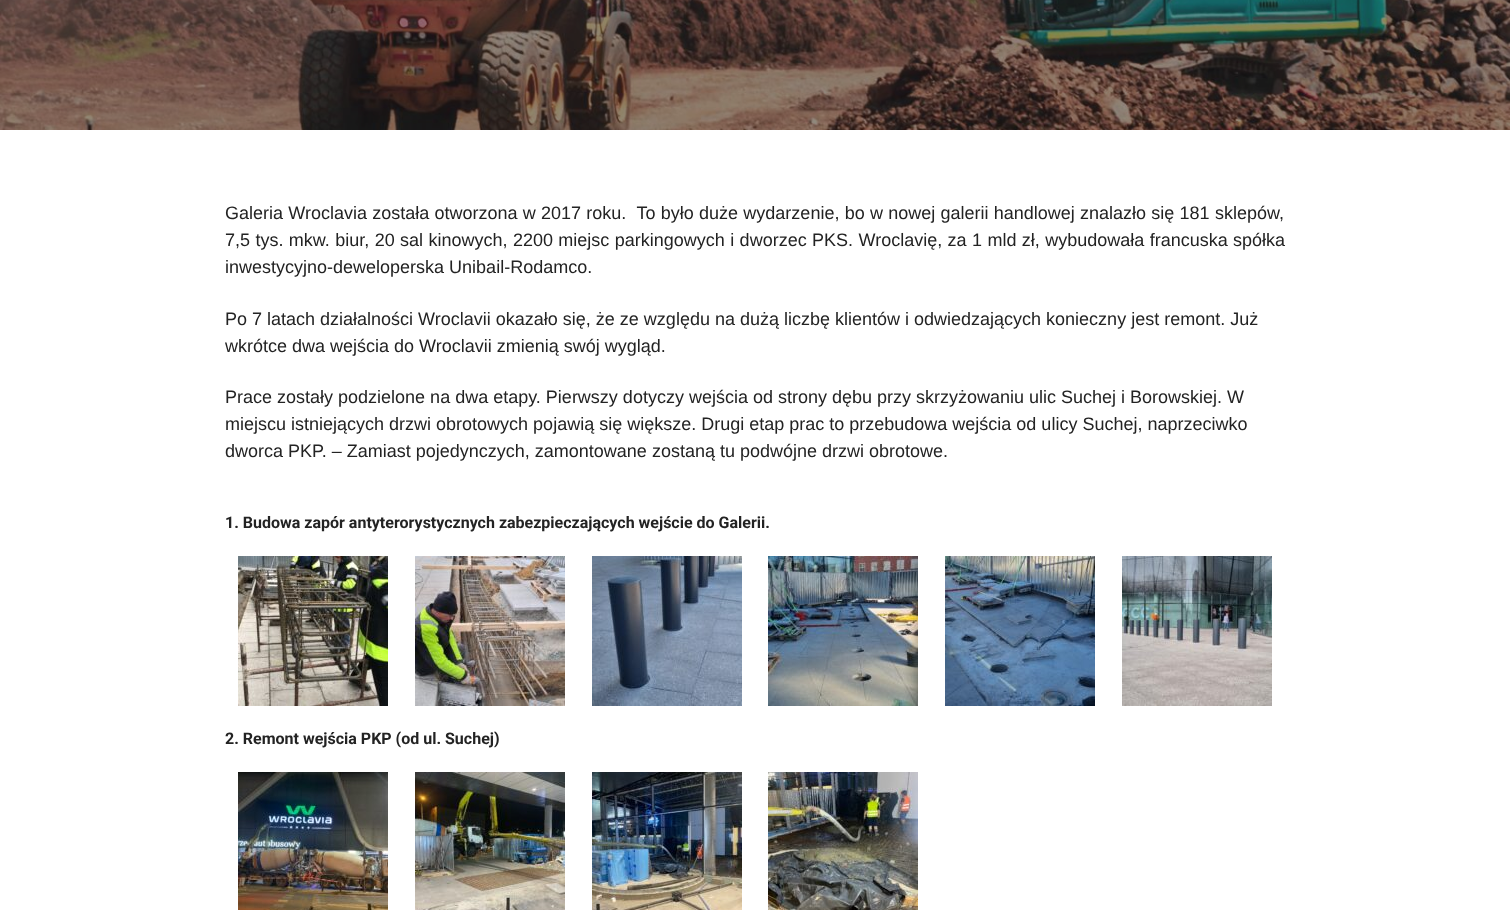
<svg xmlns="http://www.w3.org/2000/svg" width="1510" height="910">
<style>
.a{font:18px Liberation Sans;fill:#232323}
.b{font:bold 16px Roboto;fill:#232323}
</style>
<rect width="100%" height="100%" fill="#fff"/>
<image href="1.png" x="0" y="0" width="1510" height="130"/>
<image href="2.png" x="238" y="556" width="150" height="150"/>
<image href="3.png" x="415" y="556" width="150" height="150"/>
<image href="4.png" x="592" y="556" width="150" height="150"/>
<image href="5.png" x="768" y="556" width="150" height="150"/>
<image href="6.png" x="945" y="556" width="150" height="150"/>
<image href="7.png" x="1122" y="556" width="150" height="150"/>
<image href="8.png" x="238" y="772" width="150" height="138"/>
<image href="9.png" x="415" y="772" width="150" height="138"/>
<image href="10.png" x="592" y="772" width="150" height="138"/>
<image href="11.png" x="768" y="772" width="150" height="138"/>
<text class="a" xml:space="preserve" x="225" y="219" word-spacing="0.25">Galeria Wroclavia została otworzona w 2017 roku.  To było duże wydarzenie, bo w nowej galerii handlowej znalazło się 181 sklepów,</text>
<text class="a" x="225" y="246" word-spacing="0.4">7,5 tys. mkw. biur, 20 sal kinowych, 2200 miejsc parkingowych i dworzec PKS. Wroclavię, za 1 mld zł, wybudowała francuska spółka</text>
<text class="a" x="225" y="273">inwestycyjno-deweloperska Unibail-Rodamco.</text>
<text class="a" x="225" y="325">Po 7 latach działalności Wroclavii okazało się, że ze względu na dużą liczbę klientów i odwiedzających konieczny jest remont. Już</text>
<text class="a" x="225" y="352">wkrótce dwa wejścia do Wroclavii zmienią swój wygląd.</text>
<text class="a" x="225" y="403">Prace zostały podzielone na dwa etapy. Pierwszy dotyczy wejścia od strony dębu przy skrzyżowaniu ulic Suchej i Borowskiej. W</text>
<text class="a" x="225" y="430">miejscu istniejących drzwi obrotowych pojawią się większe. Drugi etap prac to przebudowa wejścia od ulicy Suchej, naprzeciwko</text>
<text class="a" x="225" y="457">dworca PKP. – Zamiast pojedynczych, zamontowane zostaną tu podwójne drzwi obrotowe.</text>
<text class="b" x="225" y="528">1. Budowa zapór antyterorystycznych zabezpieczających wejście do Galerii.</text>
<text class="b" x="225" y="744">2. Remont wejścia PKP (od ul. Suchej)</text>
</svg>
